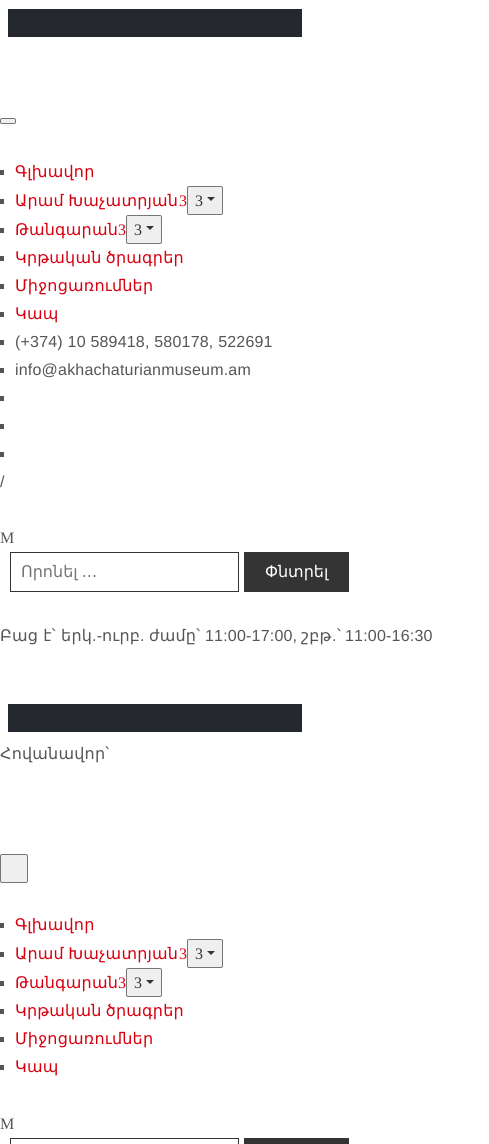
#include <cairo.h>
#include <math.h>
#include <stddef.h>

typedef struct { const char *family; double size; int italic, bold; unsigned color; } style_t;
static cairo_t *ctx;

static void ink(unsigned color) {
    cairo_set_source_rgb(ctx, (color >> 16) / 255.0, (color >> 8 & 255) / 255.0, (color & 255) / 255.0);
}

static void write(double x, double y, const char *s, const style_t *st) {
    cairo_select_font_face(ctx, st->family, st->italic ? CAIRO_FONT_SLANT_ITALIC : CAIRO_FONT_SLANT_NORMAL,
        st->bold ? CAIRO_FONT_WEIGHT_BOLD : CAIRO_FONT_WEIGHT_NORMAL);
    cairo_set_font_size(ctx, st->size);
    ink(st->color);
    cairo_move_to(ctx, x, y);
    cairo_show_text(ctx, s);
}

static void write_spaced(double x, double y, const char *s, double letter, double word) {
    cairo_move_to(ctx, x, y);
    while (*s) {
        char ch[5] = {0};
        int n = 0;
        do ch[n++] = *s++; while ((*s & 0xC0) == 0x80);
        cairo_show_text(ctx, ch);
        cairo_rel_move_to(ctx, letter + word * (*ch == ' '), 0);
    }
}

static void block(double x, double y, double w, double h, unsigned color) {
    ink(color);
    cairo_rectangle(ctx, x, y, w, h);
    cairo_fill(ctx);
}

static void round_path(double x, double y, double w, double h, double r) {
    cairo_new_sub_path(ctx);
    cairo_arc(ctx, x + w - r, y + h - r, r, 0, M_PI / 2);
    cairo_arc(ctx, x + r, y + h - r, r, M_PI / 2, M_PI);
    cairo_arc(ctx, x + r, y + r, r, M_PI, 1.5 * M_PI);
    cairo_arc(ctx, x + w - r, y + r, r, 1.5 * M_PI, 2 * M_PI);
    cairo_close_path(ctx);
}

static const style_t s1 = {"Liberation Serif", 16, 0, 0, 0x343434};
static const style_t s2 = {"DejaVu Sans", 16, 0, 0, 0xffffff};

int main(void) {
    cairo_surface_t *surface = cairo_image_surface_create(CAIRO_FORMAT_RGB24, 489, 1144);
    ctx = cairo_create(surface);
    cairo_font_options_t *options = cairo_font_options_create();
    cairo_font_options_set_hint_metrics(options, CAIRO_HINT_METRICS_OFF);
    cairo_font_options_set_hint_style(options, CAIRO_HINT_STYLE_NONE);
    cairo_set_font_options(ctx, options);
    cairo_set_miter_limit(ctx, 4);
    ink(0xffffff);
    cairo_paint(ctx);
    block(8, 9, 294, 28, 0x25282e);
    ink(0xefefef);
    round_path(0.5, 118.5, 15, 5, 1.5);
    cairo_fill_preserve(ctx);
    ink(0x767676);
    cairo_set_line_width(ctx, 1);
    cairo_stroke(ctx);
    block(0, 170, 4, 5, 0x555555);
    cairo_select_font_face(ctx, "DejaVu Sans", CAIRO_FONT_SLANT_NORMAL, CAIRO_FONT_WEIGHT_NORMAL);
    cairo_set_font_size(ctx, 16);
    ink(0xd7000f);
    write_spaced(15, 177, "Գլխավոր", 0.2, 0);
    block(0, 199, 4, 5, 0x555555);
    ink(0xd7000f);
    write_spaced(15, 206, "Արամ Խաչատրյան", 0.2, -1);
    cairo_select_font_face(ctx, "Liberation Serif", CAIRO_FONT_SLANT_NORMAL, CAIRO_FONT_WEIGHT_NORMAL);
    write_spaced(179, 206, "3", 0.2, 0);
    ink(0xefefef);
    round_path(187.5, 186.5, 35, 28, 1.5);
    cairo_fill_preserve(ctx);
    ink(0x767676);
    cairo_stroke(ctx);
    write(195, 206, "3", &s1);
    cairo_new_path(ctx);
    cairo_move_to(ctx, 207, 197);
    cairo_line_to(ctx, 215, 197);
    cairo_line_to(ctx, 211, 201);
    cairo_close_path(ctx);
    cairo_fill(ctx);
    block(0, 228, 4, 5, 0x555555);
    cairo_select_font_face(ctx, "DejaVu Sans", CAIRO_FONT_SLANT_NORMAL, CAIRO_FONT_WEIGHT_NORMAL);
    ink(0xd7000f);
    write_spaced(15, 235, "Թանգարան", 0.2, 0);
    cairo_select_font_face(ctx, "Liberation Serif", CAIRO_FONT_SLANT_NORMAL, CAIRO_FONT_WEIGHT_NORMAL);
    write_spaced(118, 235, "3", 0.2, 0);
    ink(0xefefef);
    round_path(126.5, 215.5, 35, 28, 1.5);
    cairo_fill_preserve(ctx);
    ink(0x767676);
    cairo_stroke(ctx);
    write(134, 235, "3", &s1);
    cairo_new_path(ctx);
    cairo_move_to(ctx, 146, 226);
    cairo_line_to(ctx, 154, 226);
    cairo_line_to(ctx, 150, 230);
    cairo_close_path(ctx);
    cairo_fill(ctx);
    block(0, 256, 4, 5, 0x555555);
    cairo_select_font_face(ctx, "DejaVu Sans", CAIRO_FONT_SLANT_NORMAL, CAIRO_FONT_WEIGHT_NORMAL);
    ink(0xd7000f);
    write_spaced(15, 263, "Կրթական ծրագրեր", 0.2, -1);
    block(0, 284, 4, 5, 0x555555);
    ink(0xd7000f);
    write_spaced(15, 291, "Միջոցառումներ", 0.2, 0);
    block(0, 312, 4, 5, 0x555555);
    ink(0xd7000f);
    write_spaced(15, 319, "Կապ", 0.2, 0);
    block(0, 340, 4, 5, 0x555555);
    cairo_select_font_face(ctx, "Liberation Sans", CAIRO_FONT_SLANT_NORMAL, CAIRO_FONT_WEIGHT_NORMAL);
    write_spaced(15, 347, "(+374) 10 589418, 580178, 522691", 0.2, 0);
    block(0, 368, 4, 5, 0x555555);
    write_spaced(15, 375, "info@akhachaturianmuseum.am", 0.2, 0);
    block(0, 396, 4, 5, 0x555555);
    block(0, 424, 4, 5, 0x555555);
    block(0, 452, 4, 5, 0x555555);
    write_spaced(0, 487, "/", 0.2, 0);
    cairo_select_font_face(ctx, "Liberation Serif", CAIRO_FONT_SLANT_NORMAL, CAIRO_FONT_WEIGHT_NORMAL);
    write_spaced(0, 543, "M", 0.2, 0);
    cairo_rectangle(ctx, 10.5, 552.5, 228, 39);
    ink(0x343434);
    cairo_stroke(ctx);
    cairo_select_font_face(ctx, "DejaVu Sans", CAIRO_FONT_SLANT_NORMAL, CAIRO_FONT_WEIGHT_NORMAL);
    ink(0x757575);
    write_spaced(21, 577, "Որոնել ...", 0, -1);
    block(244, 552, 105, 40, 0x343434);
    write(265, 577, "Փնտրել", &s2);
    ink(0x555555);
    write_spaced(0, 641, "Բաց է՝ երկ", 0.2, 0);
    cairo_select_font_face(ctx, "Liberation Sans", CAIRO_FONT_SLANT_NORMAL, CAIRO_FONT_WEIGHT_NORMAL);
    write_spaced(92, 641, ".-", 0.2, 0);
    cairo_select_font_face(ctx, "DejaVu Sans", CAIRO_FONT_SLANT_NORMAL, CAIRO_FONT_WEIGHT_NORMAL);
    write_spaced(102, 641, "ուրբ", 0.2, 0);
    cairo_select_font_face(ctx, "Liberation Sans", CAIRO_FONT_SLANT_NORMAL, CAIRO_FONT_WEIGHT_NORMAL);
    write_spaced(140, 641, ".", 0.2, 0);
    cairo_select_font_face(ctx, "DejaVu Sans", CAIRO_FONT_SLANT_NORMAL, CAIRO_FONT_WEIGHT_NORMAL);
    write_spaced(149, 641, "ժամը՝", 0.2, 0);
    cairo_select_font_face(ctx, "Liberation Sans", CAIRO_FONT_SLANT_NORMAL, CAIRO_FONT_WEIGHT_NORMAL);
    write_spaced(205, 641, "11:00-17:00,", 0.2, 0);
    cairo_select_font_face(ctx, "DejaVu Sans", CAIRO_FONT_SLANT_NORMAL, CAIRO_FONT_WEIGHT_NORMAL);
    write_spaced(301, 641, "շբթ", 0.2, 0);
    cairo_select_font_face(ctx, "Liberation Sans", CAIRO_FONT_SLANT_NORMAL, CAIRO_FONT_WEIGHT_NORMAL);
    write_spaced(332, 641, ".", 0.2, 0);
    cairo_select_font_face(ctx, "DejaVu Sans", CAIRO_FONT_SLANT_NORMAL, CAIRO_FONT_WEIGHT_NORMAL);
    write_spaced(337, 641, "՝", 0.2, 0);
    cairo_select_font_face(ctx, "Liberation Sans", CAIRO_FONT_SLANT_NORMAL, CAIRO_FONT_WEIGHT_NORMAL);
    write_spaced(345, 641, "11:00-16:30", 0.2, 0);
    block(8, 704, 294, 28, 0x25282e);
    cairo_select_font_face(ctx, "DejaVu Sans", CAIRO_FONT_SLANT_NORMAL, CAIRO_FONT_WEIGHT_NORMAL);
    ink(0x555555);
    write_spaced(0, 759, "Հովանավոր՝", 0.2, 0);
    ink(0xefefef);
    round_path(0.5, 854.5, 27, 28, 1.5);
    cairo_fill_preserve(ctx);
    ink(0x767676);
    cairo_stroke(ctx);
    block(0, 923, 4, 5, 0x555555);
    ink(0xd7000f);
    write_spaced(15, 930, "Գլխավոր", 0.2, 0);
    block(0, 952, 4, 5, 0x555555);
    ink(0xd7000f);
    write_spaced(15, 959, "Արամ Խաչատրյան", 0.2, -1);
    cairo_select_font_face(ctx, "Liberation Serif", CAIRO_FONT_SLANT_NORMAL, CAIRO_FONT_WEIGHT_NORMAL);
    write_spaced(179, 959, "3", 0.2, 0);
    ink(0xefefef);
    round_path(187.5, 939.5, 35, 28, 1.5);
    cairo_fill_preserve(ctx);
    ink(0x767676);
    cairo_stroke(ctx);
    write(195, 959, "3", &s1);
    cairo_new_path(ctx);
    cairo_move_to(ctx, 207, 951);
    cairo_line_to(ctx, 215, 951);
    cairo_line_to(ctx, 211, 955);
    cairo_close_path(ctx);
    cairo_fill(ctx);
    block(0, 981, 4, 5, 0x555555);
    cairo_select_font_face(ctx, "DejaVu Sans", CAIRO_FONT_SLANT_NORMAL, CAIRO_FONT_WEIGHT_NORMAL);
    ink(0xd7000f);
    write_spaced(15, 988, "Թանգարան", 0.2, 0);
    cairo_select_font_face(ctx, "Liberation Serif", CAIRO_FONT_SLANT_NORMAL, CAIRO_FONT_WEIGHT_NORMAL);
    write_spaced(118, 988, "3", 0.2, 0);
    ink(0xefefef);
    round_path(126.5, 968.5, 35, 28, 1.5);
    cairo_fill_preserve(ctx);
    ink(0x767676);
    cairo_stroke(ctx);
    write(134, 988, "3", &s1);
    cairo_new_path(ctx);
    cairo_move_to(ctx, 146, 980);
    cairo_line_to(ctx, 154, 980);
    cairo_line_to(ctx, 150, 984);
    cairo_close_path(ctx);
    cairo_fill(ctx);
    block(0, 1009, 4, 5, 0x555555);
    cairo_select_font_face(ctx, "DejaVu Sans", CAIRO_FONT_SLANT_NORMAL, CAIRO_FONT_WEIGHT_NORMAL);
    ink(0xd7000f);
    write_spaced(15, 1016, "Կրթական ծրագրեր", 0.2, -1);
    block(0, 1037, 4, 5, 0x555555);
    ink(0xd7000f);
    write_spaced(15, 1044, "Միջոցառումներ", 0.2, 0);
    block(0, 1065, 4, 5, 0x555555);
    ink(0xd7000f);
    write_spaced(15, 1072, "Կապ", 0.2, 0);
    cairo_select_font_face(ctx, "Liberation Serif", CAIRO_FONT_SLANT_NORMAL, CAIRO_FONT_WEIGHT_NORMAL);
    ink(0x555555);
    write_spaced(0, 1129, "M", 0.2, 0);
    cairo_rectangle(ctx, 10.5, 1138.5, 228, 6);
    ink(0x343434);
    cairo_stroke(ctx);
    block(244, 1138, 105, 6, 0x343434);
    cairo_surface_write_to_png(surface, "screenshot.png");
    cairo_font_options_destroy(options);
    cairo_destroy(ctx);
    cairo_surface_destroy(surface);
    return 0;
}
